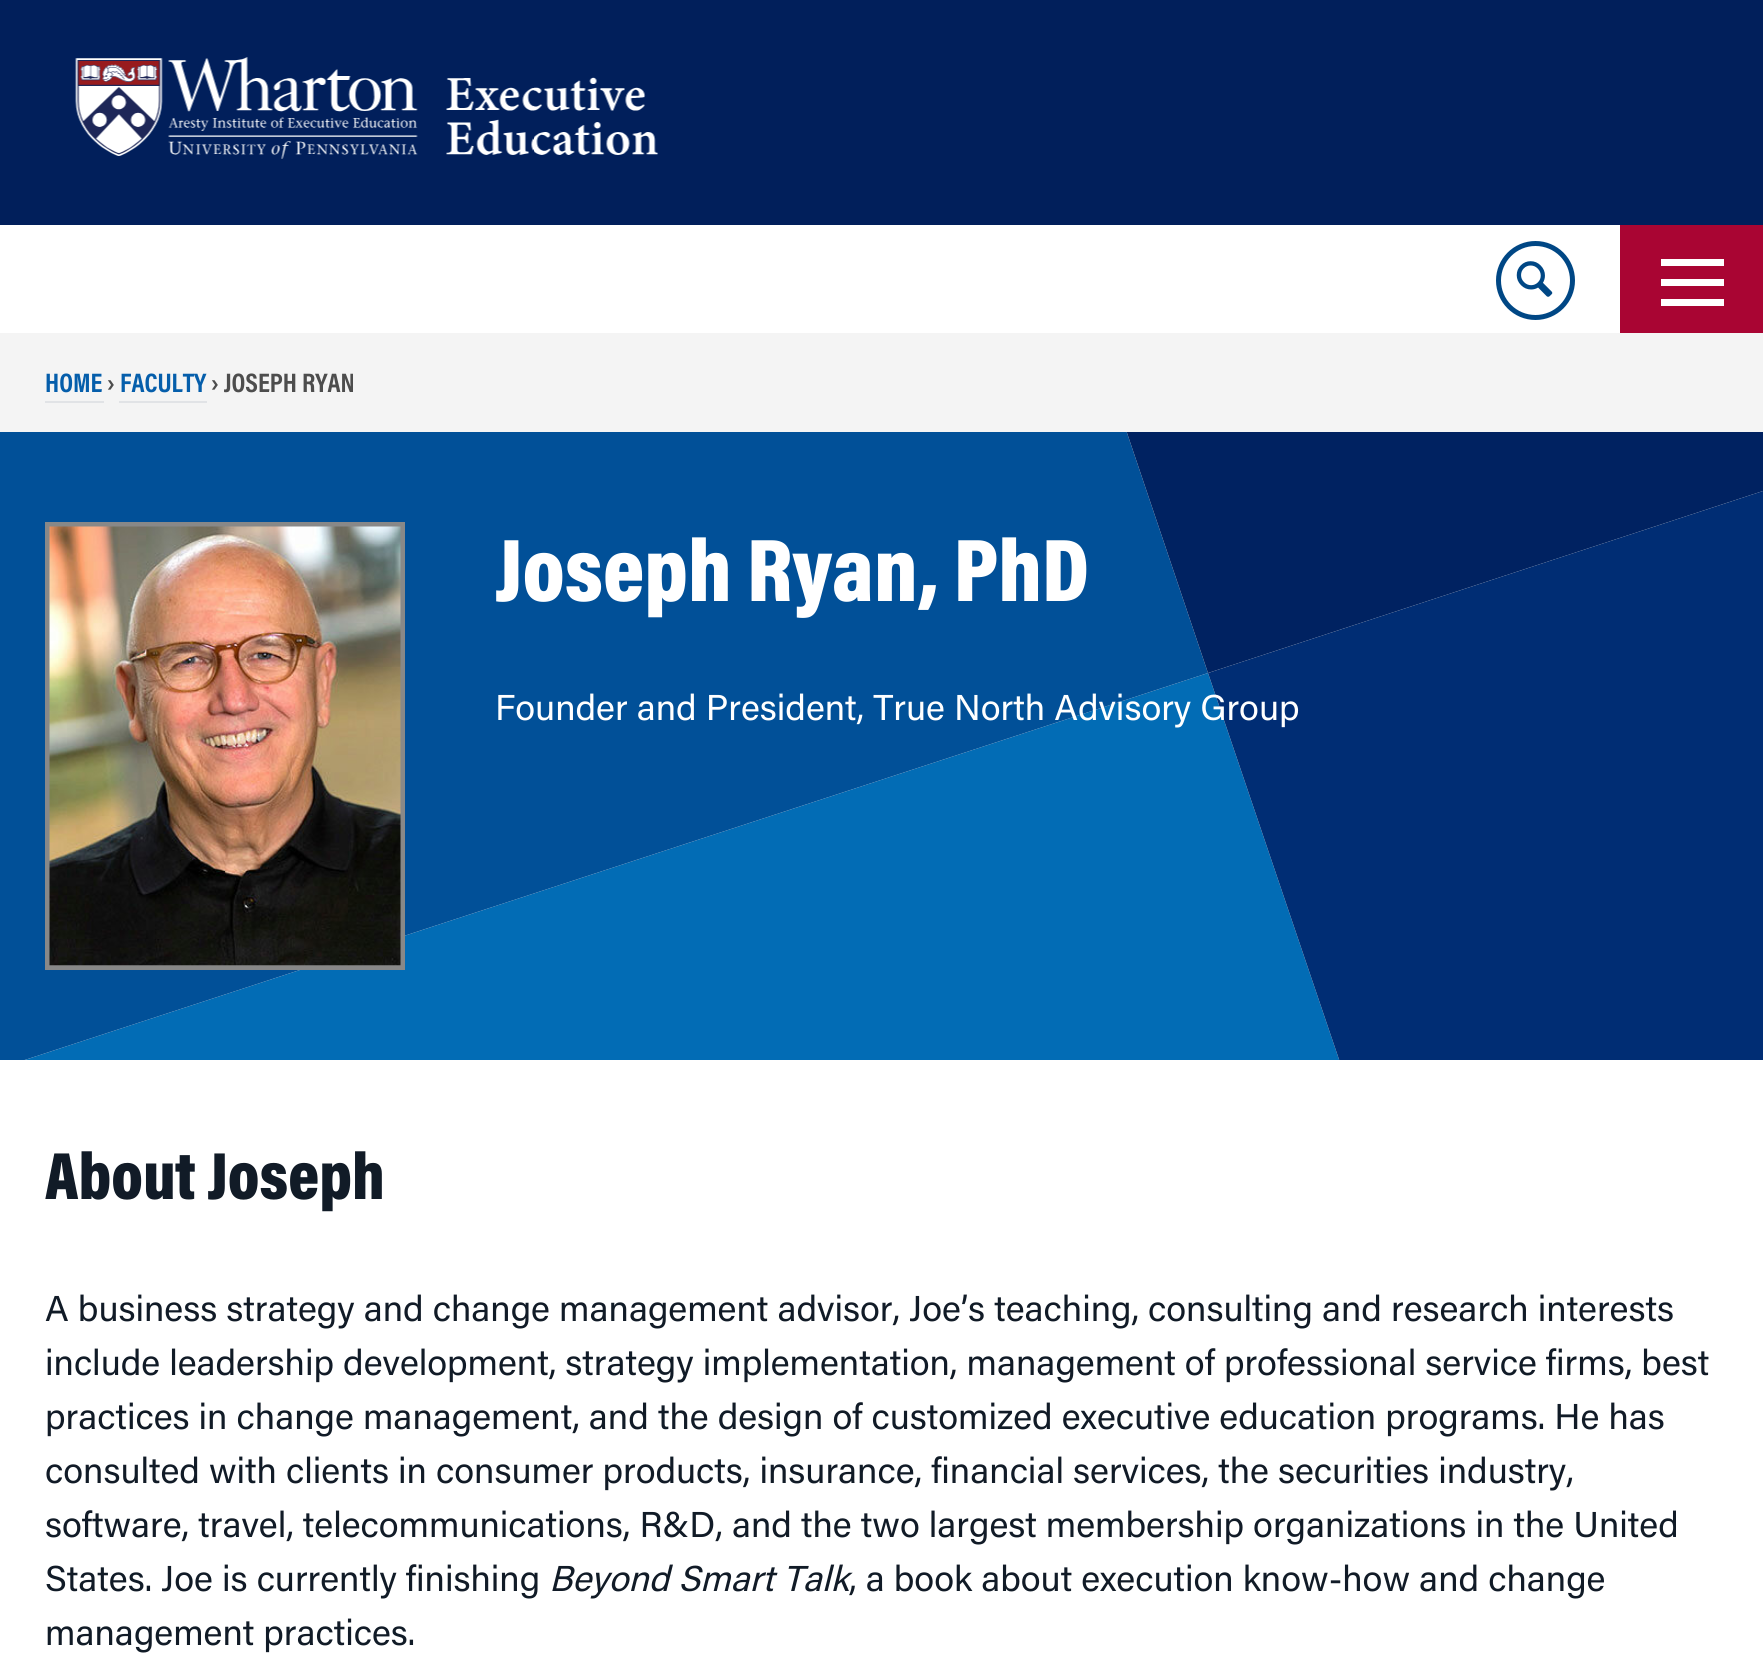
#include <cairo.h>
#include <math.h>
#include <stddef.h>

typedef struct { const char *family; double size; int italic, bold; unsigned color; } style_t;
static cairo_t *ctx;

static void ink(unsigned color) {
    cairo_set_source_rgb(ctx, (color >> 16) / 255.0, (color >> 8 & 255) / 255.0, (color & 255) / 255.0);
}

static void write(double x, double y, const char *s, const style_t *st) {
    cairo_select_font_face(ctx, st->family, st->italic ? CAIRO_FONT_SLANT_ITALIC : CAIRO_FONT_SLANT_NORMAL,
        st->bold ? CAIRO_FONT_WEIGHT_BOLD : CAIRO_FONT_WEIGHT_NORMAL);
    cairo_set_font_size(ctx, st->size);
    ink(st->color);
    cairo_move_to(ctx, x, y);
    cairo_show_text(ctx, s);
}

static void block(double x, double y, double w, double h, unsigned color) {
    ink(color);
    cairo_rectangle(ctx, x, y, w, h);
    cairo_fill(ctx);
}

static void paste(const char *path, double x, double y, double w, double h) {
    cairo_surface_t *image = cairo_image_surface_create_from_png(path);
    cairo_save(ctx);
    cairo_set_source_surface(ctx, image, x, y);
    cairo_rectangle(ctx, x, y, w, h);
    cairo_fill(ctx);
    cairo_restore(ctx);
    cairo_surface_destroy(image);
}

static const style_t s1 = {"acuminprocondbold", 27, 0, 1, 0x055eab};
static const style_t s2 = {"acuminprocondbold", 27, 0, 1, 0x4d4d4d};
static const style_t s3 = {"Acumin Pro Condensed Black", 90, 0, 0, 0xffffff};
static const style_t s4 = {"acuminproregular", 36, 0, 0, 0xffffff};
static const style_t s5 = {"Acumin Pro Condensed Black", 67.5, 0, 0, 0x111b27};
static const style_t s6 = {"acuminproregular", 36, 0, 0, 0x111b27};
static const style_t s7 = {"acuminproregular", 36, 1, 0, 0x111b27};

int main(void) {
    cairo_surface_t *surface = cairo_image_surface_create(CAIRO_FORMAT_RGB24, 1763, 1669);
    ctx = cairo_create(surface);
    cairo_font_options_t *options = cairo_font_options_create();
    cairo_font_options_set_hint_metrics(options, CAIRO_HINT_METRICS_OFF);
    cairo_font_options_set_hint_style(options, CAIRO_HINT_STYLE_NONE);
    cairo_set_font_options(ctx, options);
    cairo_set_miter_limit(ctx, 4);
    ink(0xf4f4f4);
    cairo_paint(ctx);
    block(0, 225, 1620, 108, 0xffffff);
    block(0, 0, 1763, 225, 0x011f5b);
    paste("pic1.png", 75, 57, 584, 102);
    cairo_arc(ctx, 1535.5, 280.5, 37, 0, 2 * M_PI);
    ink(0x004785);
    cairo_set_line_width(ctx, 5);
    cairo_stroke(ctx);
    paste("pic2.png", 1516, 261, 37, 36);
    block(1620, 225, 143, 108, 0xa90533);
    block(1661, 279, 63, 7, 0xffffff);
    block(1661, 259, 63, 7, 0xffffff);
    block(1661, 299, 63, 7, 0xffffff);
    write(45, 392, "HOME", &s1);
    block(45, 401, 59, 2, 0xe1e3e6);
    write(107, 392, "›", &s2);
    block(119, 401, 88, 2, 0xe1e3e6);
    write(120, 392, "FACULTY", &s1);
    write(211, 392, "› JOSEPH RYAN", &s2);
    ink(0x026cb5);
    cairo_new_path(ctx);
    cairo_move_to(ctx, -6, 1070);
    cairo_line_to(ctx, -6, 1319);
    cairo_line_to(ctx, 1427, 1319);
    cairo_line_to(ctx, 1208, 673);
    cairo_close_path(ctx);
    cairo_fill(ctx);
    ink(0x002d74);
    cairo_new_path(ctx);
    cairo_move_to(ctx, 1208, 673);
    cairo_line_to(ctx, 1427, 1319);
    cairo_line_to(ctx, 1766, 1319);
    cairo_line_to(ctx, 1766, 490);
    cairo_close_path(ctx);
    cairo_fill(ctx);
    cairo_save(ctx);
    cairo_rectangle(ctx, 0, 432, 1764, 628);
    cairo_clip(ctx);
    ink(0x015098);
    cairo_new_path(ctx);
    cairo_move_to(ctx, -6, 1070);
    cairo_line_to(ctx, 1208, 673);
    cairo_line_to(ctx, 1038, 169);
    cairo_line_to(ctx, 3, 169);
    cairo_line_to(ctx, -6, 172);
    cairo_close_path(ctx);
    cairo_fill(ctx);
    ink(0x002261);
    cairo_new_path(ctx);
    cairo_move_to(ctx, 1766, 490);
    cairo_line_to(ctx, 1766, 169);
    cairo_line_to(ctx, 1038, 169);
    cairo_line_to(ctx, 1208, 673);
    cairo_close_path(ctx);
    cairo_fill(ctx);
    cairo_restore(ctx);
    cairo_rectangle(ctx, 47.5, 524.5, 355, 443);
    ink(0x888888);
    cairo_stroke(ctx);
    paste("pic3.png", 49, 526, 352, 440);
    write(495, 601, "Joseph Ryan, PhD", &s3);
    write(495, 720, "Founder and President, True North Advisory Group", &s4);
    block(0, 1060, 1763, 609, 0xffffff);
    write(45, 1199, "About Joseph", &s5);
    write(45, 1321, "A business strategy and change management advisor, Joe’s teaching, consulting and research interests", &s6);
    write(45, 1375, "include leadership development, strategy implementation, management of professional service firms, best", &s6);
    write(45, 1429, "practices in change management, and the design of customized executive education programs. He has", &s6);
    write(45, 1483, "consulted with clients in consumer products, insurance, financial services, the securities industry,", &s6);
    write(45, 1537, "software, travel, telecommunications, R&D, and the two largest membership organizations in the United", &s6);
    write(45, 1591, "States. Joe is currently finishing", &s6);
    write(549, 1591, "Beyond Smart Talk", &s7);
    write(849, 1591, ", a book about execution know-how and change", &s6);
    write(45, 1645, "management practices.", &s6);
    cairo_surface_write_to_png(surface, "screenshot.png");
    cairo_font_options_destroy(options);
    cairo_destroy(ctx);
    cairo_surface_destroy(surface);
    return 0;
}
